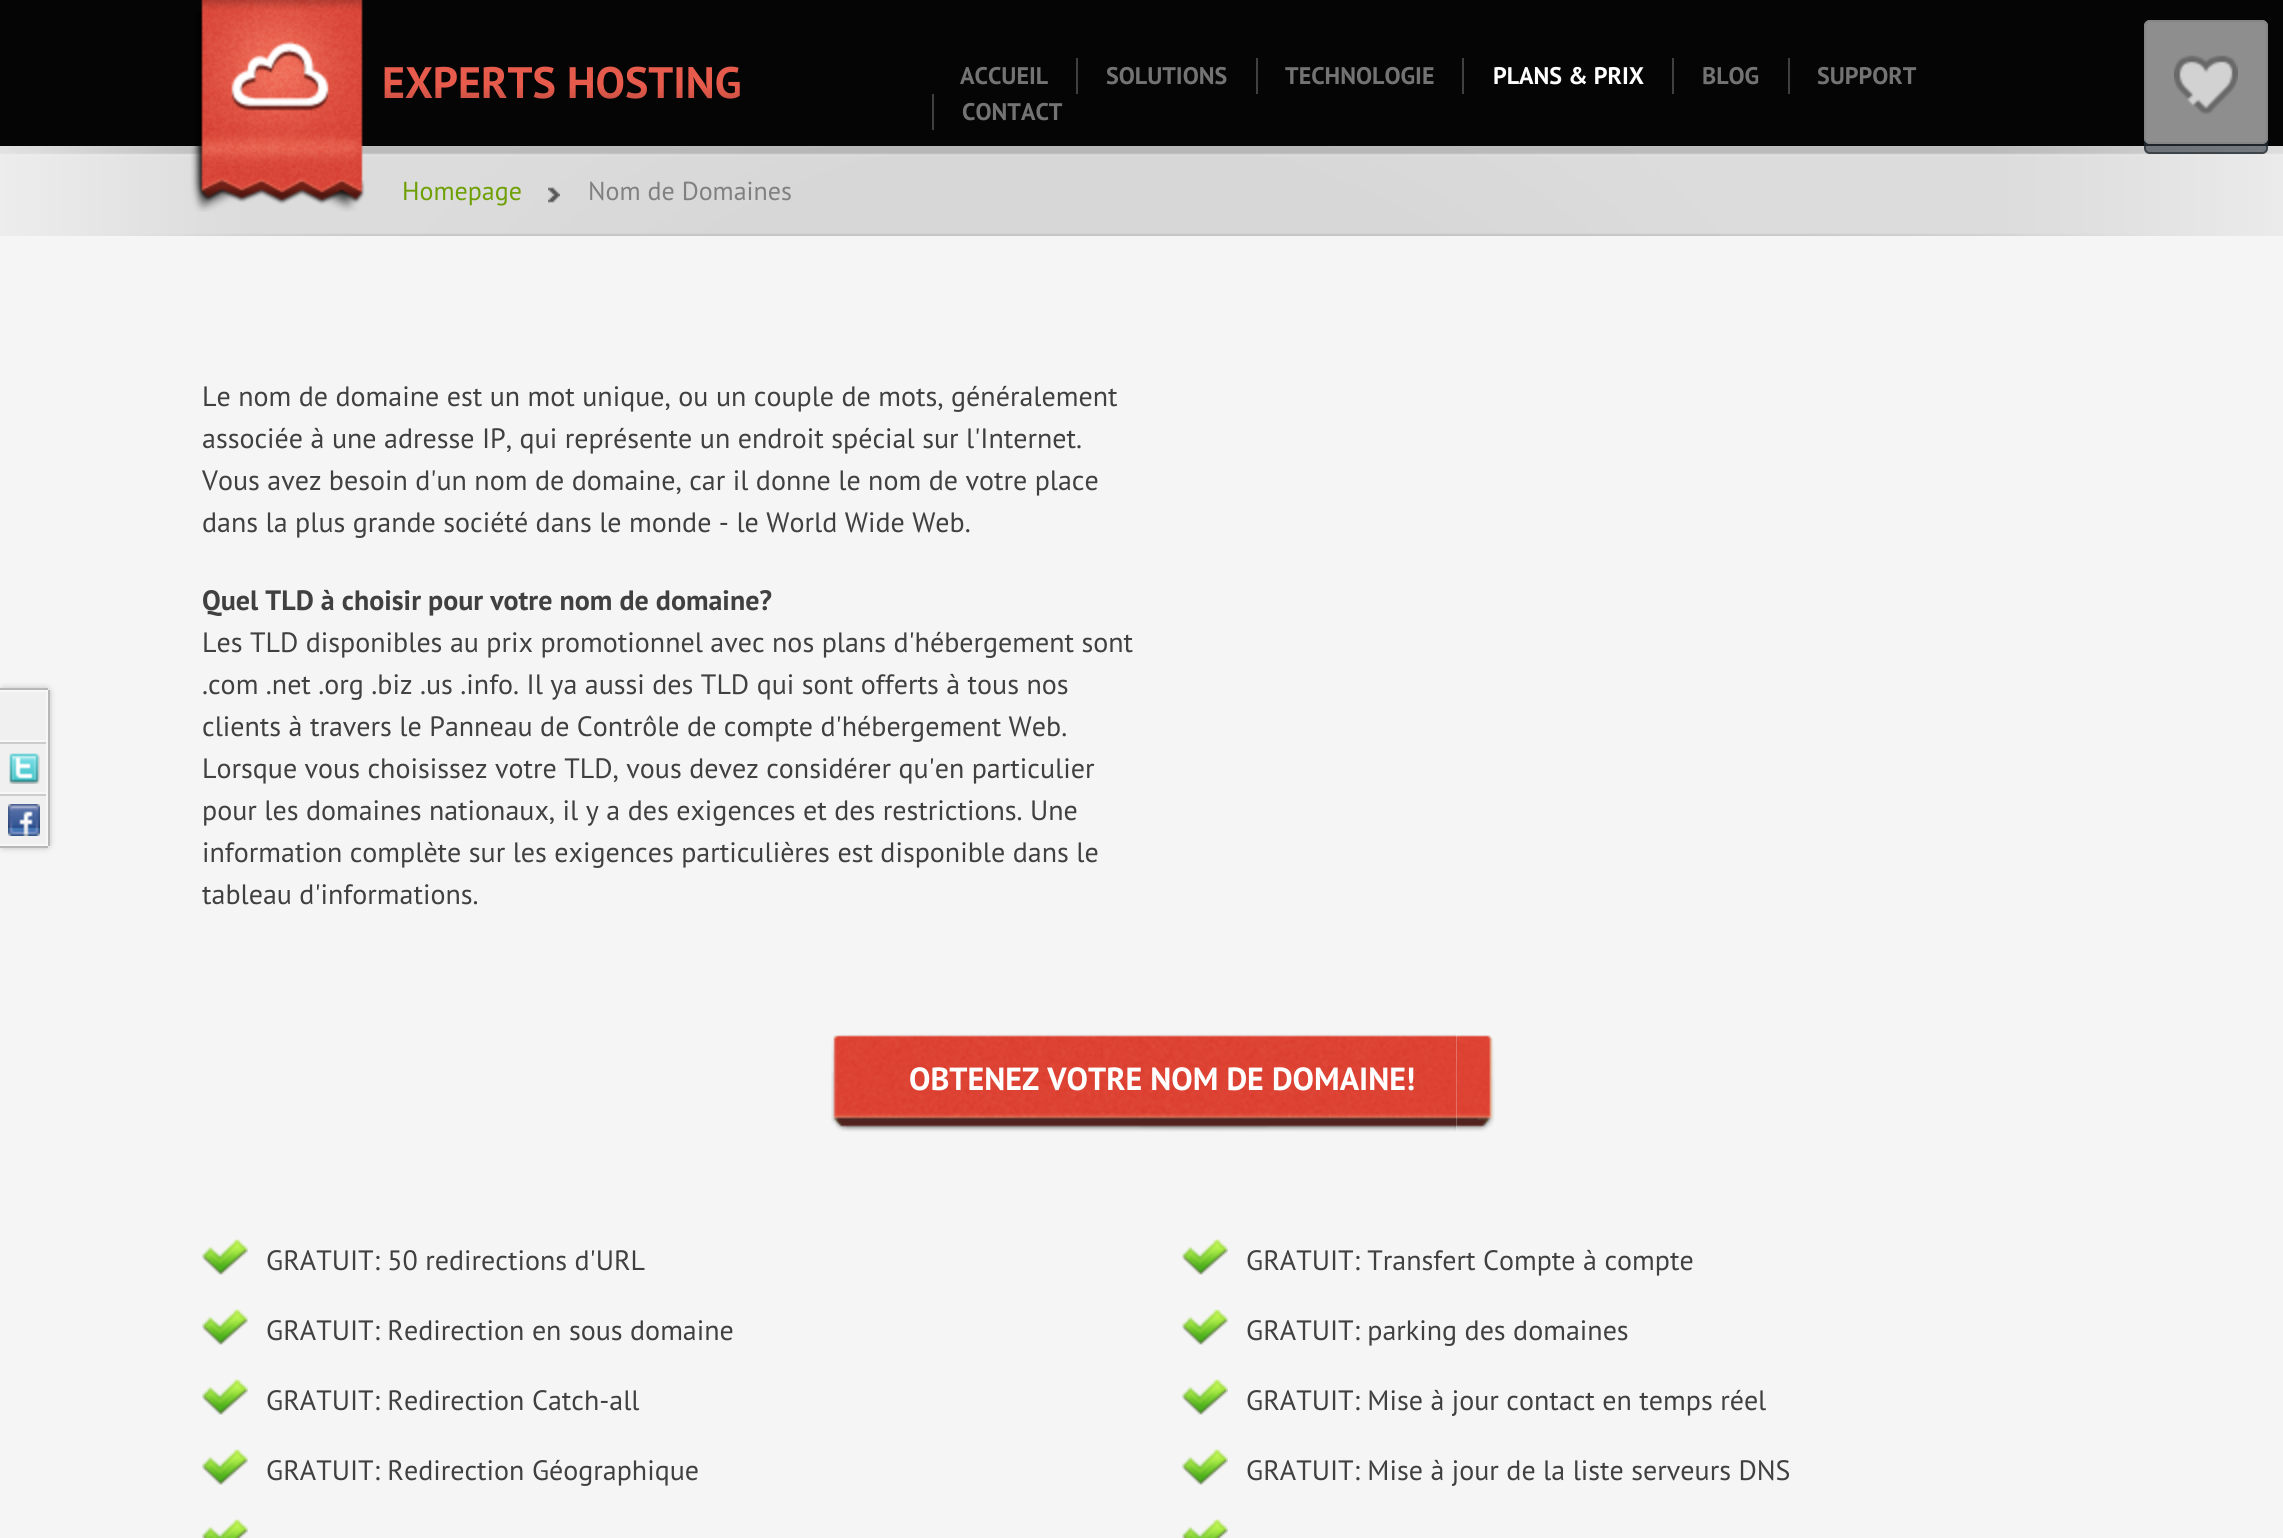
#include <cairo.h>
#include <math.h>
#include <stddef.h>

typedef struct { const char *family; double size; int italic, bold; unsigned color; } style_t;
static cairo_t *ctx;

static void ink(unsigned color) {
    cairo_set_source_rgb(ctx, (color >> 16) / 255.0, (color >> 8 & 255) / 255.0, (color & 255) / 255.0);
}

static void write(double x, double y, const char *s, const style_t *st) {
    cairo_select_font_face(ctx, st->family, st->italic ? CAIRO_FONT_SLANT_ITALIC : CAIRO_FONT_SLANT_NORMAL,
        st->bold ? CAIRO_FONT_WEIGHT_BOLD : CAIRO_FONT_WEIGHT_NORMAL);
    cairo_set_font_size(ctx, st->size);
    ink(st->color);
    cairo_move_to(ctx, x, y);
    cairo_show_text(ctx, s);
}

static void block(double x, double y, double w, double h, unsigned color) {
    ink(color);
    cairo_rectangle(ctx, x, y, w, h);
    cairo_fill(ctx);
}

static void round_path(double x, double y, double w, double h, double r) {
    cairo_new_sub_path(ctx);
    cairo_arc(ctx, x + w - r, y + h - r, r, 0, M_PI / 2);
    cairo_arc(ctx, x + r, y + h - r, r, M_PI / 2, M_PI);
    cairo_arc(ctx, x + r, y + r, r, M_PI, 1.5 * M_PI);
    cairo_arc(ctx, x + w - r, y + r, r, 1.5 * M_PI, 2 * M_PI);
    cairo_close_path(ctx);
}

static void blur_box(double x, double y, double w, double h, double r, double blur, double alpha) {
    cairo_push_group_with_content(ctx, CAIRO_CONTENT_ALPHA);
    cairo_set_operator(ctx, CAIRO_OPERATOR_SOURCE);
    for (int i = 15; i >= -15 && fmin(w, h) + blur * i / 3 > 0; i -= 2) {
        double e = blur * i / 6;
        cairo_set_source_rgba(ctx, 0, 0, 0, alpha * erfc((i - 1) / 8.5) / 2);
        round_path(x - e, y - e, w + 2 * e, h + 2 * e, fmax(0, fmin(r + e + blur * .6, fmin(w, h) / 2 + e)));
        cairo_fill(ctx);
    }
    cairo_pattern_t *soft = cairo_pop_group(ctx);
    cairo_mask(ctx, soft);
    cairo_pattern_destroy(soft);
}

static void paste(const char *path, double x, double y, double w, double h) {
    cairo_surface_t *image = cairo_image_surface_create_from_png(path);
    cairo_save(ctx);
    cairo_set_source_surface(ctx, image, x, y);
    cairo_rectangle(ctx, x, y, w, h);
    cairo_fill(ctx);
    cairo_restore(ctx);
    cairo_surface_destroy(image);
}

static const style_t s1 = {"PT Sans", 44, 0, 1, 0xe65b4c};
static const style_t s2 = {"PT Sans", 24, 0, 1, 0x737373};
static const style_t s3 = {"PT Sans", 24, 0, 1, 0xffffff};
static const style_t s4 = {"PT Sans", 26, 0, 0, 0x6ea004};
static const style_t s5 = {"PT Sans", 26, 0, 0, 0x808080};
static const style_t s6 = {"PT Sans", 28, 0, 0, 0x404040};
static const style_t s7 = {"PT Sans", 28, 0, 1, 0x404040};
static const style_t s8 = {"PT Sans", 32, 0, 1, 0xffffff};

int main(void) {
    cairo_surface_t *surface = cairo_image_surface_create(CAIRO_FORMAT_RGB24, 2283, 1538);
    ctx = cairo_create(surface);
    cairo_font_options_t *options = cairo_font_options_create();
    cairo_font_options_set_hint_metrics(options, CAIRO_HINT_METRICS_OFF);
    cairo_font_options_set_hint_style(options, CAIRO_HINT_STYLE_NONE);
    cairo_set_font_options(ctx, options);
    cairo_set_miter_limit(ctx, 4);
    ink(0xf5f5f5);
    cairo_paint(ctx);
    cairo_save(ctx);
    cairo_set_fill_rule(ctx, CAIRO_FILL_RULE_EVEN_ODD);
    cairo_new_path(ctx);
    cairo_move_to(ctx, 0, 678);
    cairo_line_to(ctx, 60, 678);
    cairo_line_to(ctx, 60, 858);
    cairo_line_to(ctx, 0, 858);
    cairo_close_path(ctx);
    cairo_move_to(ctx, 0, 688);
    cairo_line_to(ctx, 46, 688);
    cairo_curve_to(ctx, 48, 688, 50, 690, 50, 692);
    cairo_line_to(ctx, 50, 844);
    cairo_curve_to(ctx, 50, 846, 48, 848, 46, 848);
    cairo_line_to(ctx, 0, 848);
    cairo_close_path(ctx);
    cairo_clip(ctx);
    ink(0x181818);
    blur_box(0, 688, 50, 160, 4, 3, 0.25);
    cairo_restore(ctx);
    cairo_set_source_rgba(ctx, 0.941, 0.941, 0.941, 0.95);
    cairo_new_path(ctx);
    cairo_move_to(ctx, 0, 688);
    cairo_line_to(ctx, 46, 688);
    cairo_curve_to(ctx, 48, 688, 50, 690, 50, 692);
    cairo_line_to(ctx, 50, 844);
    cairo_curve_to(ctx, 50, 846, 48, 848, 46, 848);
    cairo_line_to(ctx, 0, 848);
    cairo_close_path(ctx);
    cairo_fill(ctx);
    block(0, 688, 48, 2, 0xb7b7b7);
    block(48, 690, 2, 156, 0xb7b7b7);
    block(0, 846, 48, 2, 0xb7b7b7);
    block(0, 690, 48, 2, 0xf7f7f7);
    block(46, 690, 2, 52, 0xf7f7f7);
    block(0, 740, 48, 2, 0xf7f7f7);
    block(0, 742, 48, 2, 0xcccccc);
    block(46, 742, 2, 52, 0xf7f7f7);
    block(0, 792, 48, 2, 0xf7f7f7);
    paste("pic1.png", 9, 753, 31, 31);
    block(0, 794, 48, 2, 0xcccccc);
    block(46, 794, 2, 52, 0xf7f7f7);
    block(0, 844, 48, 2, 0xf7f7f7);
    paste("pic2.png", 8, 804, 32, 32);
    block(0, 0, 2283, 146, 0x050505);
    paste("pic5.png", 0, 146, 2283, 90);
    paste("pic3.png", 190, 0, 175, 212);
    write(382, 98, "EXPERTS HOSTING", &s1);
    paste("pic4.png", 384, 88, 356, 11);
    write(960, 84, "ACCUEIL", &s2);
    block(1076, 58, 2, 36, 0x404040);
    write(1106, 84, "SOLUTIONS", &s2);
    block(1256, 58, 2, 36, 0x404040);
    write(1285, 84, "TECHNOLOGIE", &s2);
    block(1462, 58, 2, 36, 0x404040);
    write(1493, 84, "PLANS & PRIX", &s3);
    block(1672, 58, 2, 36, 0x404040);
    write(1702, 84, "BLOG", &s2);
    block(1788, 58, 2, 36, 0x404040);
    write(1817, 84, "SUPPORT", &s2);
    block(932, 94, 2, 36, 0x404040);
    write(962, 120, "CONTACT", &s2);
    write(402, 200, "Homepage", &s4);
    paste("pic6.png", 548, 187, 12, 16);
    write(588, 200, "Nom de Domaines", &s5);
    write(202, 406, "Le nom de domaine est un mot unique, ou un couple de mots, généralement", &s6);
    write(202, 448, "associée à une adresse IP, qui représente un endroit spécial sur l'Internet.", &s6);
    write(202, 490, "Vous avez besoin d'un nom de domaine, car il donne le nom de votre place", &s6);
    write(202, 532, "dans la plus grande société dans le monde - le World Wide Web.", &s6);
    write(202, 610, "Quel TLD à choisir pour votre nom de domaine?", &s7);
    write(202, 652, "Les TLD disponibles au prix promotionnel avec nos plans d'hébergement sont", &s6);
    write(202, 694, ".com .net .org .biz .us .info. Il ya aussi des TLD qui sont offerts à tous nos", &s6);
    write(202, 736, "clients à travers le Panneau de Contrôle de compte d'hébergement Web.", &s6);
    write(202, 778, "Lorsque vous choisissez votre TLD, vous devez considérer qu'en particulier", &s6);
    write(202, 820, "pour les domaines nationaux, il y a des exigences et des restrictions. Une", &s6);
    write(202, 862, "information complète sur les exigences particulières est disponible dans le", &s6);
    write(202, 904, "tableau d'informations.", &s6);
    paste("pic7.png", 1455, 1035, 40, 97);
    paste("pic8.png", 831, 1034, 625, 98);
    write(909, 1090, "OBTENEZ VOTRE NOM DE DOMAINE!", &s8);
    paste("pic9.png", 202, 1239, 46, 36);
    write(266, 1270, "GRATUIT: 50 redirections d'URL", &s6);
    paste("pic9.png", 202, 1309, 46, 36);
    write(266, 1340, "GRATUIT: Redirection en sous domaine", &s6);
    paste("pic9.png", 202, 1379, 46, 36);
    write(266, 1410, "GRATUIT: Redirection Catch-all", &s6);
    paste("pic9.png", 202, 1449, 46, 36);
    write(266, 1480, "GRATUIT: Redirection Géographique", &s6);
    paste("pic10.png", 202, 1519, 46, 19);
    paste("pic9.png", 1182, 1239, 46, 36);
    write(1246, 1270, "GRATUIT: Transfert Compte à compte", &s6);
    paste("pic9.png", 1182, 1309, 46, 36);
    write(1246, 1340, "GRATUIT: parking des domaines", &s6);
    paste("pic9.png", 1182, 1379, 46, 36);
    write(1246, 1410, "GRATUIT: Mise à jour contact en temps réel", &s6);
    paste("pic9.png", 1182, 1449, 46, 36);
    write(1246, 1480, "GRATUIT: Mise à jour de la liste serveurs DNS", &s6);
    paste("pic10.png", 1182, 1519, 46, 19);
    cairo_set_source_rgba(ctx, 0.188, 0.224, 0.259, 0.6);
    cairo_new_path(ctx);
    cairo_move_to(ctx, 2144, 100);
    cairo_line_to(ctx, 2268, 100);
    cairo_line_to(ctx, 2268, 148);
    cairo_curve_to(ctx, 2268, 151.5, 2265.5, 154, 2262, 154);
    cairo_line_to(ctx, 2150, 154);
    cairo_curve_to(ctx, 2146.5, 154, 2144, 151.5, 2144, 148);
    cairo_close_path(ctx);
    cairo_fill(ctx);
    cairo_new_path(ctx);
    cairo_move_to(ctx, 2145, 101);
    cairo_line_to(ctx, 2267, 101);
    cairo_line_to(ctx, 2267, 148);
    cairo_curve_to(ctx, 2267, 151, 2265, 153, 2262, 153);
    cairo_line_to(ctx, 2150, 153);
    cairo_curve_to(ctx, 2147, 153, 2145, 151, 2145, 148);
    cairo_close_path(ctx);
    cairo_set_source_rgba(ctx, 0.11, 0.145, 0.173, 0.6);
    cairo_stroke(ctx);
    ink(0x8e8e8e);
    round_path(2144, 20, 124, 124, 6);
    cairo_fill(ctx);
    paste("pic11.png", 2174, 55, 64, 59);
    round_path(2145, 21, 122, 122, 5);
    ink(0x858585);
    cairo_stroke(ctx);
    cairo_surface_write_to_png(surface, "screenshot.png");
    cairo_font_options_destroy(options);
    cairo_destroy(ctx);
    cairo_surface_destroy(surface);
    return 0;
}
